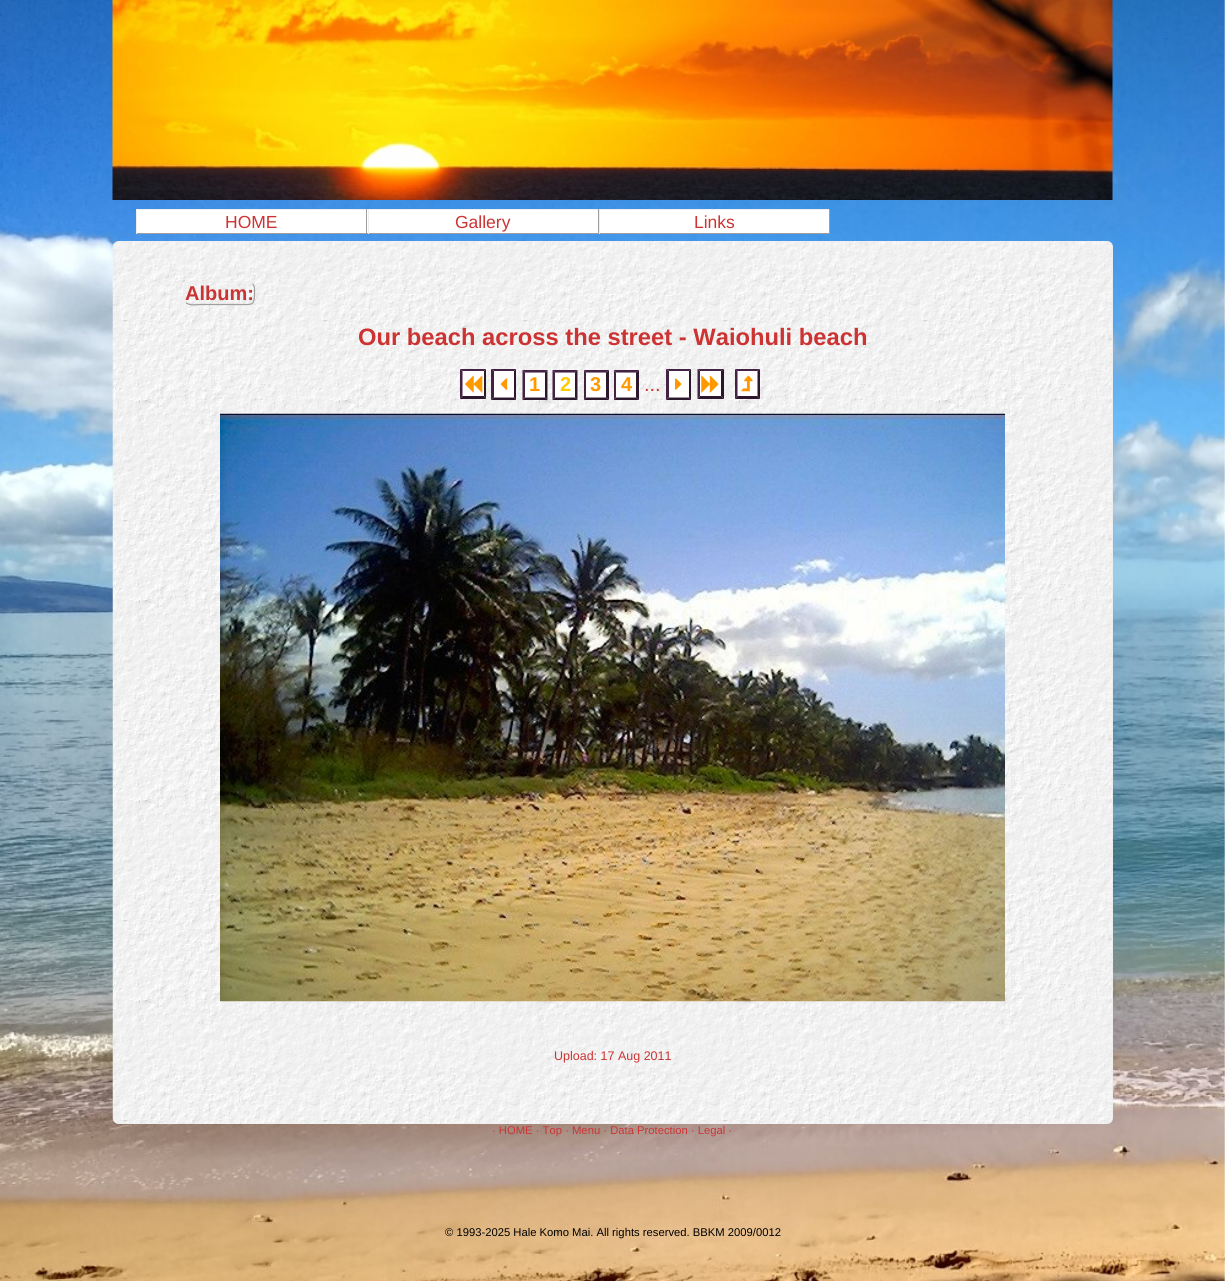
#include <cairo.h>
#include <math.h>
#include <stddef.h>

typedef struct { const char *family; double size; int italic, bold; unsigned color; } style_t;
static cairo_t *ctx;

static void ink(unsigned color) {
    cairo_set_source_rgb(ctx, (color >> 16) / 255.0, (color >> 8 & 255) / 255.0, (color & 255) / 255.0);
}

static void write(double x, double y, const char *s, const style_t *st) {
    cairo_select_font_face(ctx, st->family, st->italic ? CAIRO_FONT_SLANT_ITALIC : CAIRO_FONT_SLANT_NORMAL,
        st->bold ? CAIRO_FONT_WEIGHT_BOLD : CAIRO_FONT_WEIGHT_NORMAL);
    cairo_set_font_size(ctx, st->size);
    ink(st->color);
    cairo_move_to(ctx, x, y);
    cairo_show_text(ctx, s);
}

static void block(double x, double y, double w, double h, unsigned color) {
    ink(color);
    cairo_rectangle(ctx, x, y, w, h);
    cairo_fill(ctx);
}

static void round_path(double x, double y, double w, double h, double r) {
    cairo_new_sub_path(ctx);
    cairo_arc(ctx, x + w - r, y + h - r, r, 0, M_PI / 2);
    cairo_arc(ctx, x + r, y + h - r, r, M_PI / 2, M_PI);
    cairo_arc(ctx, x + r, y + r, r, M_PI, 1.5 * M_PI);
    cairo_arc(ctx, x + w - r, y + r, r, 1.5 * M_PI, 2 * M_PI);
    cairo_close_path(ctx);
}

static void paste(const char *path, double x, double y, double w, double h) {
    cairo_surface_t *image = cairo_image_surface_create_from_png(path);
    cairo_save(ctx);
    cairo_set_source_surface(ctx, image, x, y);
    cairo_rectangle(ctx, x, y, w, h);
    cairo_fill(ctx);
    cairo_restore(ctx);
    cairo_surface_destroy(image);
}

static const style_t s1 = {"Liberation Sans", 17.5, 0, 0, 0xcc3333};
static const style_t s2 = {"Liberation Sans", 20, 0, 1, 0xcc3333};
static const style_t s3 = {"Liberation Sans", 23.75, 0, 1, 0xcc3333};
static const style_t s4 = {"Liberation Sans", 20, 0, 1, 0xff9900};
static const style_t s5 = {"Liberation Sans", 20, 0, 1, 0xffcc00};
static const style_t s6 = {"Liberation Sans", 20, 0, 0, 0xcc3333};
static const style_t s7 = {"Liberation Sans", 12.5, 0, 0, 0xcc3333};
static const style_t s8 = {"Liberation Sans", 11.25, 0, 0, 0xcc3333};
static const style_t s9 = {"Liberation Sans", 11.25, 0, 0, 0x000000};

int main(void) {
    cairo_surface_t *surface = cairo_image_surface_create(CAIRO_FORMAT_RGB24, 1225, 1281);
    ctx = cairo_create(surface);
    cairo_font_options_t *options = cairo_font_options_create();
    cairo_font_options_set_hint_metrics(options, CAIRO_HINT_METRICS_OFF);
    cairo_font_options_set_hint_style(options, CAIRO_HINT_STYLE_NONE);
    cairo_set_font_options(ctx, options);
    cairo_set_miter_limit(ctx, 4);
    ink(0xffffff);
    cairo_paint(ctx);
    paste("pic1.png", 0, 0, 1225, 1281);
    paste("pic2.png", 112, 0, 1001, 200);
    block(137, 210, 231, 23, 0xffffff);
    block(136, 209, 694, 1, 0xeeeeee);
    block(366, 209, 1, 25, 0x9f9f9f);
    block(136, 233, 232, 1, 0x9f9f9f);
    block(136, 209, 1, 25, 0xeeeeee);
    write(225, 228, "HOME", &s1);
    block(369, 210, 229, 23, 0xffffff);
    block(598, 209, 1, 25, 0x9f9f9f);
    block(368, 233, 231, 1, 0x9f9f9f);
    block(368, 209, 1, 25, 0xeeeeee);
    write(455, 228, "Gallery", &s1);
    block(600, 210, 229, 23, 0xffffff);
    block(829, 209, 1, 25, 0x9f9f9f);
    block(599, 233, 231, 1, 0x9f9f9f);
    block(599, 209, 1, 25, 0xeeeeee);
    write(694, 228, "Links", &s1);
    ink(0xeeeeee);
    round_path(113, 241, 1000, 883, 6);
    cairo_fill(ctx);
    paste("pic3.png", 112, 241, 1000, 883);
    cairo_new_path(ctx);
    cairo_move_to(ctx, 252.5, 283.5);
    cairo_curve_to(ctx, 255, 286, 254.5, 290, 254.5, 293);
    cairo_curve_to(ctx, 254.5, 306, 252.5, 304.5, 239, 304.5);
    cairo_line_to(ctx, 200, 304.5);
    cairo_curve_to(ctx, 197, 304.5, 189, 306, 186, 302.5);
    ink(0x9f9f9f);
    cairo_set_line_width(ctx, 1.2);
    cairo_stroke(ctx);
    cairo_new_path(ctx);
    cairo_move_to(ctx, 186, 302.5);
    cairo_curve_to(ctx, 183.5, 300.5, 184.5, 296, 184.5, 293);
    cairo_curve_to(ctx, 184.5, 280, 186.5, 282, 200, 282);
    cairo_line_to(ctx, 239, 282);
    cairo_curve_to(ctx, 241.5, 282, 249.5, 280.5, 252.5, 283.5);
    ink(0xeeeeee);
    cairo_stroke(ctx);
    write(185, 300, "Album:", &s2);
    write(358, 345, "Our beach across the street - Waiohuli beach", &s3);
    block(460, 369, 26, 30, 0xffffff);
    ink(0x442244);
    cairo_new_path(ctx);
    cairo_move_to(ctx, 460, 369);
    cairo_line_to(ctx, 486, 369);
    cairo_line_to(ctx, 484, 371);
    cairo_line_to(ctx, 462.5, 371);
    cairo_close_path(ctx);
    cairo_fill(ctx);
    ink(0x2d172d);
    cairo_new_path(ctx);
    cairo_move_to(ctx, 486, 369);
    cairo_line_to(ctx, 486, 399);
    cairo_line_to(ctx, 484, 396);
    cairo_line_to(ctx, 484, 371);
    cairo_close_path(ctx);
    cairo_fill(ctx);
    cairo_new_path(ctx);
    cairo_move_to(ctx, 486, 399);
    cairo_line_to(ctx, 460, 399);
    cairo_line_to(ctx, 462.5, 396);
    cairo_line_to(ctx, 484, 396);
    cairo_close_path(ctx);
    cairo_fill(ctx);
    ink(0x442244);
    cairo_new_path(ctx);
    cairo_move_to(ctx, 460, 399);
    cairo_line_to(ctx, 460, 369);
    cairo_line_to(ctx, 462.5, 371);
    cairo_line_to(ctx, 462.5, 396);
    cairo_close_path(ctx);
    cairo_fill(ctx);
    paste("pic4.png", 465, 375, 18, 18);
    block(491, 369, 25, 31, 0xffffff);
    ink(0x442244);
    cairo_new_path(ctx);
    cairo_move_to(ctx, 491, 369);
    cairo_line_to(ctx, 516, 369);
    cairo_line_to(ctx, 514, 371);
    cairo_line_to(ctx, 494, 371);
    cairo_close_path(ctx);
    cairo_fill(ctx);
    ink(0x2d172d);
    cairo_new_path(ctx);
    cairo_move_to(ctx, 516, 369);
    cairo_line_to(ctx, 516, 400);
    cairo_line_to(ctx, 514, 397.5);
    cairo_line_to(ctx, 514, 371);
    cairo_close_path(ctx);
    cairo_fill(ctx);
    cairo_new_path(ctx);
    cairo_move_to(ctx, 516, 400);
    cairo_line_to(ctx, 491, 400);
    cairo_line_to(ctx, 494, 397.5);
    cairo_line_to(ctx, 514, 397.5);
    cairo_close_path(ctx);
    cairo_fill(ctx);
    ink(0x442244);
    cairo_new_path(ctx);
    cairo_move_to(ctx, 491, 400);
    cairo_line_to(ctx, 491, 369);
    cairo_line_to(ctx, 494, 371);
    cairo_line_to(ctx, 494, 397.5);
    cairo_close_path(ctx);
    cairo_fill(ctx);
    paste("pic5.png", 500, 378, 8, 12);
    block(523, 370, 25, 30, 0xffffff);
    ink(0x442244);
    cairo_new_path(ctx);
    cairo_move_to(ctx, 522.5, 370);
    cairo_line_to(ctx, 547.5, 370);
    cairo_line_to(ctx, 545, 372.5);
    cairo_line_to(ctx, 525, 372.5);
    cairo_close_path(ctx);
    cairo_fill(ctx);
    ink(0x2d172d);
    cairo_new_path(ctx);
    cairo_move_to(ctx, 547.5, 370);
    cairo_line_to(ctx, 547.5, 400);
    cairo_line_to(ctx, 545, 397.5);
    cairo_line_to(ctx, 545, 372.5);
    cairo_close_path(ctx);
    cairo_fill(ctx);
    cairo_new_path(ctx);
    cairo_move_to(ctx, 547.5, 400);
    cairo_line_to(ctx, 522.5, 400);
    cairo_line_to(ctx, 525, 397.5);
    cairo_line_to(ctx, 545, 397.5);
    cairo_close_path(ctx);
    cairo_fill(ctx);
    ink(0x442244);
    cairo_new_path(ctx);
    cairo_move_to(ctx, 522.5, 400);
    cairo_line_to(ctx, 522.5, 370);
    cairo_line_to(ctx, 525, 372.5);
    cairo_line_to(ctx, 525, 397.5);
    cairo_close_path(ctx);
    cairo_fill(ctx);
    write(529, 391, "1", &s4);
    block(553, 370, 25, 30, 0xffffff);
    ink(0x442244);
    cairo_new_path(ctx);
    cairo_move_to(ctx, 552.5, 370);
    cairo_line_to(ctx, 577.5, 370);
    cairo_line_to(ctx, 575, 372.5);
    cairo_line_to(ctx, 555, 372.5);
    cairo_close_path(ctx);
    cairo_fill(ctx);
    ink(0x2d172d);
    cairo_new_path(ctx);
    cairo_move_to(ctx, 577.5, 370);
    cairo_line_to(ctx, 577.5, 400);
    cairo_line_to(ctx, 575, 397.5);
    cairo_line_to(ctx, 575, 372.5);
    cairo_close_path(ctx);
    cairo_fill(ctx);
    cairo_new_path(ctx);
    cairo_move_to(ctx, 577.5, 400);
    cairo_line_to(ctx, 552.5, 400);
    cairo_line_to(ctx, 555, 397.5);
    cairo_line_to(ctx, 575, 397.5);
    cairo_close_path(ctx);
    cairo_fill(ctx);
    ink(0x442244);
    cairo_new_path(ctx);
    cairo_move_to(ctx, 552.5, 400);
    cairo_line_to(ctx, 552.5, 370);
    cairo_line_to(ctx, 555, 372.5);
    cairo_line_to(ctx, 555, 397.5);
    cairo_close_path(ctx);
    cairo_fill(ctx);
    write(560, 391, "2", &s5);
    block(584, 370, 25, 30, 0xffffff);
    ink(0x442244);
    cairo_new_path(ctx);
    cairo_move_to(ctx, 584, 370);
    cairo_line_to(ctx, 609, 370);
    cairo_line_to(ctx, 606, 372.5);
    cairo_line_to(ctx, 586, 372.5);
    cairo_close_path(ctx);
    cairo_fill(ctx);
    ink(0x2d172d);
    cairo_new_path(ctx);
    cairo_move_to(ctx, 609, 370);
    cairo_line_to(ctx, 609, 400);
    cairo_line_to(ctx, 606, 397.5);
    cairo_line_to(ctx, 606, 372.5);
    cairo_close_path(ctx);
    cairo_fill(ctx);
    cairo_new_path(ctx);
    cairo_move_to(ctx, 609, 400);
    cairo_line_to(ctx, 584, 400);
    cairo_line_to(ctx, 586, 397.5);
    cairo_line_to(ctx, 606, 397.5);
    cairo_close_path(ctx);
    cairo_fill(ctx);
    ink(0x442244);
    cairo_new_path(ctx);
    cairo_move_to(ctx, 584, 400);
    cairo_line_to(ctx, 584, 370);
    cairo_line_to(ctx, 586, 372.5);
    cairo_line_to(ctx, 586, 397.5);
    cairo_close_path(ctx);
    cairo_fill(ctx);
    write(590, 391, "3", &s4);
    block(614, 370, 25, 30, 0xffffff);
    ink(0x442244);
    cairo_new_path(ctx);
    cairo_move_to(ctx, 614, 370);
    cairo_line_to(ctx, 639, 370);
    cairo_line_to(ctx, 636, 372.5);
    cairo_line_to(ctx, 616, 372.5);
    cairo_close_path(ctx);
    cairo_fill(ctx);
    ink(0x2d172d);
    cairo_new_path(ctx);
    cairo_move_to(ctx, 639, 370);
    cairo_line_to(ctx, 639, 400);
    cairo_line_to(ctx, 636, 397.5);
    cairo_line_to(ctx, 636, 372.5);
    cairo_close_path(ctx);
    cairo_fill(ctx);
    cairo_new_path(ctx);
    cairo_move_to(ctx, 639, 400);
    cairo_line_to(ctx, 614, 400);
    cairo_line_to(ctx, 616, 397.5);
    cairo_line_to(ctx, 636, 397.5);
    cairo_close_path(ctx);
    cairo_fill(ctx);
    ink(0x442244);
    cairo_new_path(ctx);
    cairo_move_to(ctx, 614, 400);
    cairo_line_to(ctx, 614, 370);
    cairo_line_to(ctx, 616, 372.5);
    cairo_line_to(ctx, 616, 397.5);
    cairo_close_path(ctx);
    cairo_fill(ctx);
    write(621, 391, "4", &s4);
    write(644, 391, "...", &s6);
    block(666, 369, 25, 31, 0xffffff);
    ink(0x442244);
    cairo_new_path(ctx);
    cairo_move_to(ctx, 666, 369);
    cairo_line_to(ctx, 691, 369);
    cairo_line_to(ctx, 689, 371);
    cairo_line_to(ctx, 669, 371);
    cairo_close_path(ctx);
    cairo_fill(ctx);
    ink(0x2d172d);
    cairo_new_path(ctx);
    cairo_move_to(ctx, 691, 369);
    cairo_line_to(ctx, 691, 400);
    cairo_line_to(ctx, 689, 397.5);
    cairo_line_to(ctx, 689, 371);
    cairo_close_path(ctx);
    cairo_fill(ctx);
    cairo_new_path(ctx);
    cairo_move_to(ctx, 691, 400);
    cairo_line_to(ctx, 666, 400);
    cairo_line_to(ctx, 669, 397.5);
    cairo_line_to(ctx, 689, 397.5);
    cairo_close_path(ctx);
    cairo_fill(ctx);
    ink(0x442244);
    cairo_new_path(ctx);
    cairo_move_to(ctx, 666, 400);
    cairo_line_to(ctx, 666, 369);
    cairo_line_to(ctx, 669, 371);
    cairo_line_to(ctx, 669, 397.5);
    cairo_close_path(ctx);
    cairo_fill(ctx);
    paste("pic6.png", 675, 378, 7, 12);
    block(698, 369, 26, 30, 0xffffff);
    ink(0x442244);
    cairo_new_path(ctx);
    cairo_move_to(ctx, 697.5, 369);
    cairo_line_to(ctx, 724, 369);
    cairo_line_to(ctx, 721, 371);
    cairo_line_to(ctx, 700, 371);
    cairo_close_path(ctx);
    cairo_fill(ctx);
    ink(0x2d172d);
    cairo_new_path(ctx);
    cairo_move_to(ctx, 724, 369);
    cairo_line_to(ctx, 724, 399);
    cairo_line_to(ctx, 721, 396);
    cairo_line_to(ctx, 721, 371);
    cairo_close_path(ctx);
    cairo_fill(ctx);
    cairo_new_path(ctx);
    cairo_move_to(ctx, 724, 399);
    cairo_line_to(ctx, 697.5, 399);
    cairo_line_to(ctx, 700, 396);
    cairo_line_to(ctx, 721, 396);
    cairo_close_path(ctx);
    cairo_fill(ctx);
    ink(0x442244);
    cairo_new_path(ctx);
    cairo_move_to(ctx, 697.5, 399);
    cairo_line_to(ctx, 697.5, 369);
    cairo_line_to(ctx, 700, 371);
    cairo_line_to(ctx, 700, 396);
    cairo_close_path(ctx);
    cairo_fill(ctx);
    paste("pic7.png", 701, 375, 18, 18);
    block(735, 369, 25, 30, 0xffffff);
    ink(0x442244);
    cairo_new_path(ctx);
    cairo_move_to(ctx, 735, 369);
    cairo_line_to(ctx, 760, 369);
    cairo_line_to(ctx, 757.5, 371);
    cairo_line_to(ctx, 737.5, 371);
    cairo_close_path(ctx);
    cairo_fill(ctx);
    ink(0x2d172d);
    cairo_new_path(ctx);
    cairo_move_to(ctx, 760, 369);
    cairo_line_to(ctx, 760, 399);
    cairo_line_to(ctx, 757.5, 396);
    cairo_line_to(ctx, 757.5, 371);
    cairo_close_path(ctx);
    cairo_fill(ctx);
    cairo_new_path(ctx);
    cairo_move_to(ctx, 760, 399);
    cairo_line_to(ctx, 735, 399);
    cairo_line_to(ctx, 737.5, 396);
    cairo_line_to(ctx, 757.5, 396);
    cairo_close_path(ctx);
    cairo_fill(ctx);
    ink(0x442244);
    cairo_new_path(ctx);
    cairo_move_to(ctx, 735, 399);
    cairo_line_to(ctx, 735, 369);
    cairo_line_to(ctx, 737.5, 371);
    cairo_line_to(ctx, 737.5, 396);
    cairo_close_path(ctx);
    cairo_fill(ctx);
    paste("pic8.png", 741, 375, 12, 17);
    paste("pic9.png", 220, 413, 785, 589);
    write(554, 1060, "Upload: 17 Aug 2011", &s7);
    write(492, 1134, "· HOME · Top · Menu · Data Protection · Legal ·", &s8);
    write(445, 1236, "© 1993-2025 Hale Komo Mai. All rights reserved. BBKM 2009/0012", &s9);
    cairo_surface_write_to_png(surface, "screenshot.png");
    cairo_font_options_destroy(options);
    cairo_destroy(ctx);
    cairo_surface_destroy(surface);
    return 0;
}
